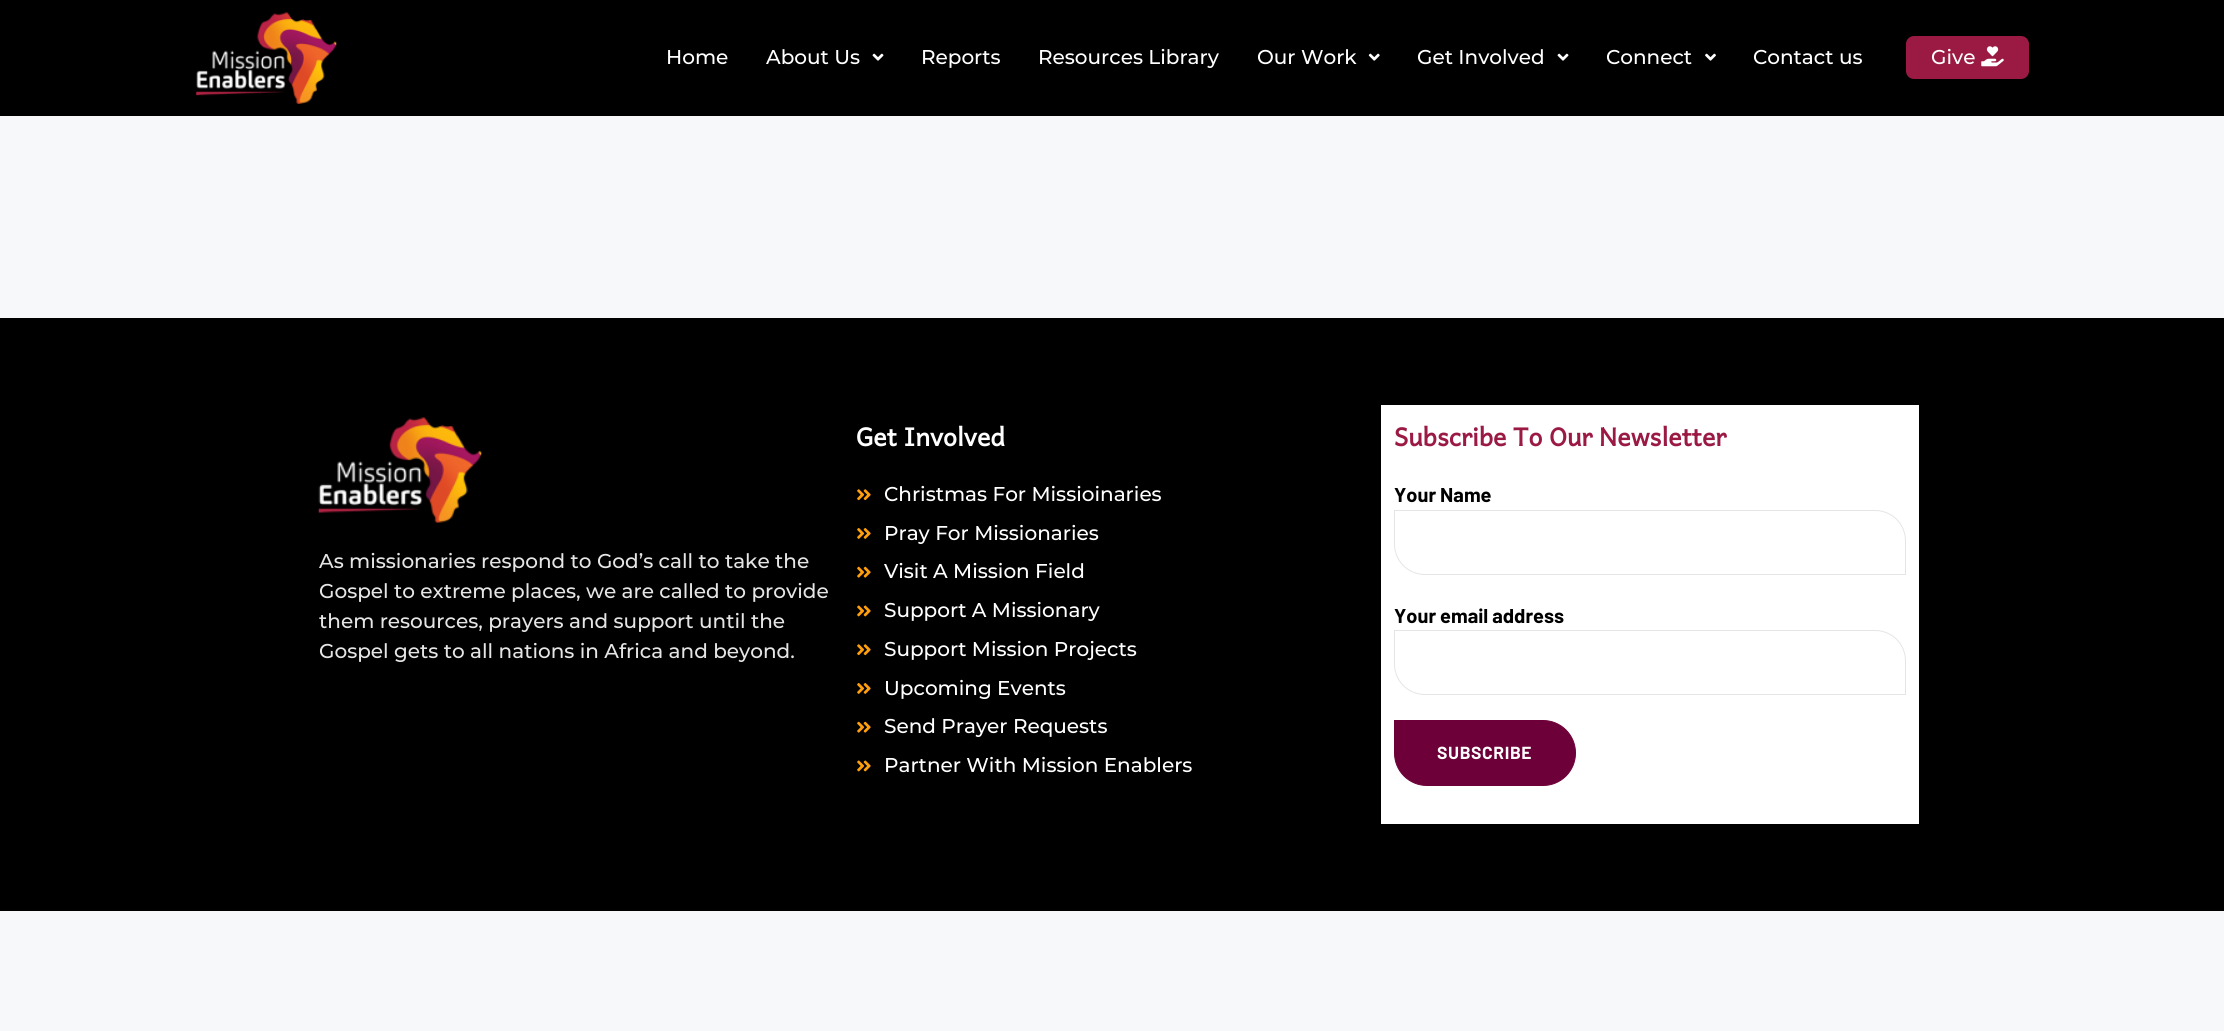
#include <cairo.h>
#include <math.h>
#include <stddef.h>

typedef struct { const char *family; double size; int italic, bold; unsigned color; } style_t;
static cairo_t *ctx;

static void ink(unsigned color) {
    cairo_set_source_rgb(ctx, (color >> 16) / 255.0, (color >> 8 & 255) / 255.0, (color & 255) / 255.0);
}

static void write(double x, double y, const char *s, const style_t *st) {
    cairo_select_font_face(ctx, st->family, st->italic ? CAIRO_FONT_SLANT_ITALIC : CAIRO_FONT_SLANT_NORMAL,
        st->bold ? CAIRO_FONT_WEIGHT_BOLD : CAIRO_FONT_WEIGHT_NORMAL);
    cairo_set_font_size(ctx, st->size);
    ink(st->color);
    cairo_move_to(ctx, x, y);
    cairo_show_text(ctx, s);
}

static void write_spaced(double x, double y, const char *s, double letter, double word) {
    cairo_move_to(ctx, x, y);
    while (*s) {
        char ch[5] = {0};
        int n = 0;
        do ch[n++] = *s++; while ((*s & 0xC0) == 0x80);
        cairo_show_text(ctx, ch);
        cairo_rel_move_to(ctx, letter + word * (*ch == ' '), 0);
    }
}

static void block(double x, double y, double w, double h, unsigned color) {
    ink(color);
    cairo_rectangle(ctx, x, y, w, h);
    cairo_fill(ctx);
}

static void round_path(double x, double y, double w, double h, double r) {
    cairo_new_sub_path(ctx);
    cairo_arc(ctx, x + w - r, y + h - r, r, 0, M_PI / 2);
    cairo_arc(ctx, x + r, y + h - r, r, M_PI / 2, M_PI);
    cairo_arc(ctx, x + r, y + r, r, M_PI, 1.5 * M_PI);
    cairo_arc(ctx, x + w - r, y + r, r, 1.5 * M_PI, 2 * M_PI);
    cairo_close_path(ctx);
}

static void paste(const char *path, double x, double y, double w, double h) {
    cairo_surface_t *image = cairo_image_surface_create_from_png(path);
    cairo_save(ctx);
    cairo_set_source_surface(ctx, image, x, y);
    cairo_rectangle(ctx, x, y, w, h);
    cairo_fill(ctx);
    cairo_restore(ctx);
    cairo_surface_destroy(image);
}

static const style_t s1 = {"Montserrat Medium", 20, 0, 0, 0xffffff};
static const style_t s2 = {"Montserrat Medium", 20, 0, 0, 0xe5e5e5};
static const style_t s3 = {"Andika", 25, 0, 1, 0xffffff};
static const style_t s4 = {"Andika", 25, 0, 1, 0x9b1a43};
static const style_t s5 = {"Barlow", 20, 0, 1, 0x000000};

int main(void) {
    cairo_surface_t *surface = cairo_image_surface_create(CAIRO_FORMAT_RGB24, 2224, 1031);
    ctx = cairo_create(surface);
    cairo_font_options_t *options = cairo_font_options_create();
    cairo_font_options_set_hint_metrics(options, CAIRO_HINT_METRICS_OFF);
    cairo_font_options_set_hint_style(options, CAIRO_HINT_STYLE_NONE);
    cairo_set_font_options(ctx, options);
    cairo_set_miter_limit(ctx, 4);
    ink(0xf7f8f9);
    cairo_paint(ctx);
    block(0, 0, 2224, 116, 0x000000);
    paste("pic1.png", 196, 12, 141, 92);
    write(666, 64, "Home", &s1);
    write(766, 64, "About Us", &s1);
    paste("pic2.png", 872, 53, 12, 8);
    write(921, 64, "Reports", &s1);
    write(1038, 64, "Resources Library", &s1);
    write(1257, 64, "Our Work", &s1);
    paste("pic3.png", 1368, 53, 12, 8);
    write(1417, 64, "Get Involved", &s1);
    paste("pic2.png", 1557, 53, 12, 8);
    write(1606, 64, "Connect", &s1);
    paste("pic4.png", 1705, 53, 11, 8);
    write(1753, 64, "Contact us", &s1);
    ink(0x9b1a43);
    round_path(1906, 36, 123, 43, 8);
    cairo_fill(ctx);
    write(1931, 64, "Give", &s1);
    paste("pic5.png", 1981, 46, 23, 21);
    block(0, 318, 2224, 593, 0x000000);
    paste("pic6.png", 318, 417, 164, 106);
    write(319, 568, "As missionaries respond to God’s call to take the", &s2);
    write(319, 598, "Gospel to extreme places, we are called to provide", &s2);
    write(319, 628, "them resources, prayers and support until the", &s2);
    write(319, 658, "Gospel gets to all nations in Africa and beyond.", &s2);
    write(856, 446, "Get Involved", &s3);
    paste("pic7.png", 857, 489, 14, 12);
    write(884, 501, "Christmas For Missioinaries", &s1);
    paste("pic8.png", 857, 528, 14, 11);
    write(884, 540, "Pray For Missionaries", &s1);
    paste("pic9.png", 857, 566, 14, 12);
    write(884, 578, "Visit A Mission Field", &s1);
    paste("pic10.png", 857, 605, 14, 12);
    write(884, 617, "Support A Missionary", &s1);
    paste("pic7.png", 857, 644, 14, 12);
    write(884, 656, "Support Mission Projects", &s1);
    paste("pic8.png", 857, 683, 14, 11);
    write(884, 695, "Upcoming Events", &s1);
    paste("pic9.png", 857, 721, 14, 12);
    write(884, 733, "Send Prayer Requests", &s1);
    paste("pic10.png", 857, 760, 14, 12);
    write(884, 772, "Partner With Mission Enablers", &s1);
    block(1381, 405, 538, 419, 0xffffff);
    write(1394, 446, "Subscribe To Our Newsletter", &s4);
    write(1394, 502, "Your Name", &s5);
    cairo_new_path(ctx);
    cairo_move_to(ctx, 1394.5, 510.5);
    cairo_line_to(ctx, 1875, 510.5);
    cairo_curve_to(ctx, 1892, 510.5, 1905.5, 524, 1905.5, 541);
    cairo_line_to(ctx, 1905.5, 574.5);
    cairo_line_to(ctx, 1425, 574.5);
    cairo_curve_to(ctx, 1408, 574.5, 1394.5, 561, 1394.5, 544);
    cairo_close_path(ctx);
    ink(0xe5e5e5);
    cairo_set_line_width(ctx, 1);
    cairo_stroke(ctx);
    write(1394, 623, "Your email address", &s5);
    cairo_new_path(ctx);
    cairo_move_to(ctx, 1394.5, 630.5);
    cairo_line_to(ctx, 1875, 630.5);
    cairo_curve_to(ctx, 1892, 630.5, 1905.5, 644, 1905.5, 661);
    cairo_line_to(ctx, 1905.5, 694.5);
    cairo_line_to(ctx, 1425, 694.5);
    cairo_curve_to(ctx, 1408, 694.5, 1394.5, 681, 1394.5, 664);
    cairo_close_path(ctx);
    ink(0xe5e5e5);
    cairo_stroke(ctx);
    ink(0x6d0038);
    cairo_new_path(ctx);
    cairo_move_to(ctx, 1394.5, 720.5);
    cairo_line_to(ctx, 1543, 720.5);
    cairo_curve_to(ctx, 1561, 720.5, 1575.5, 735, 1575.5, 753);
    cairo_curve_to(ctx, 1575.5, 771, 1561, 785.5, 1543, 785.5);
    cairo_line_to(ctx, 1427, 785.5);
    cairo_curve_to(ctx, 1409, 785.5, 1394.5, 771, 1394.5, 753);
    cairo_close_path(ctx);
    cairo_fill_preserve(ctx);
    cairo_stroke(ctx);
    cairo_set_font_size(ctx, 17.5);
    ink(0xffffff);
    write_spaced(1437, 759, "SUBSCRIBE", 0.6, 0);
    cairo_surface_write_to_png(surface, "screenshot.png");
    cairo_font_options_destroy(options);
    cairo_destroy(ctx);
    cairo_surface_destroy(surface);
    return 0;
}
